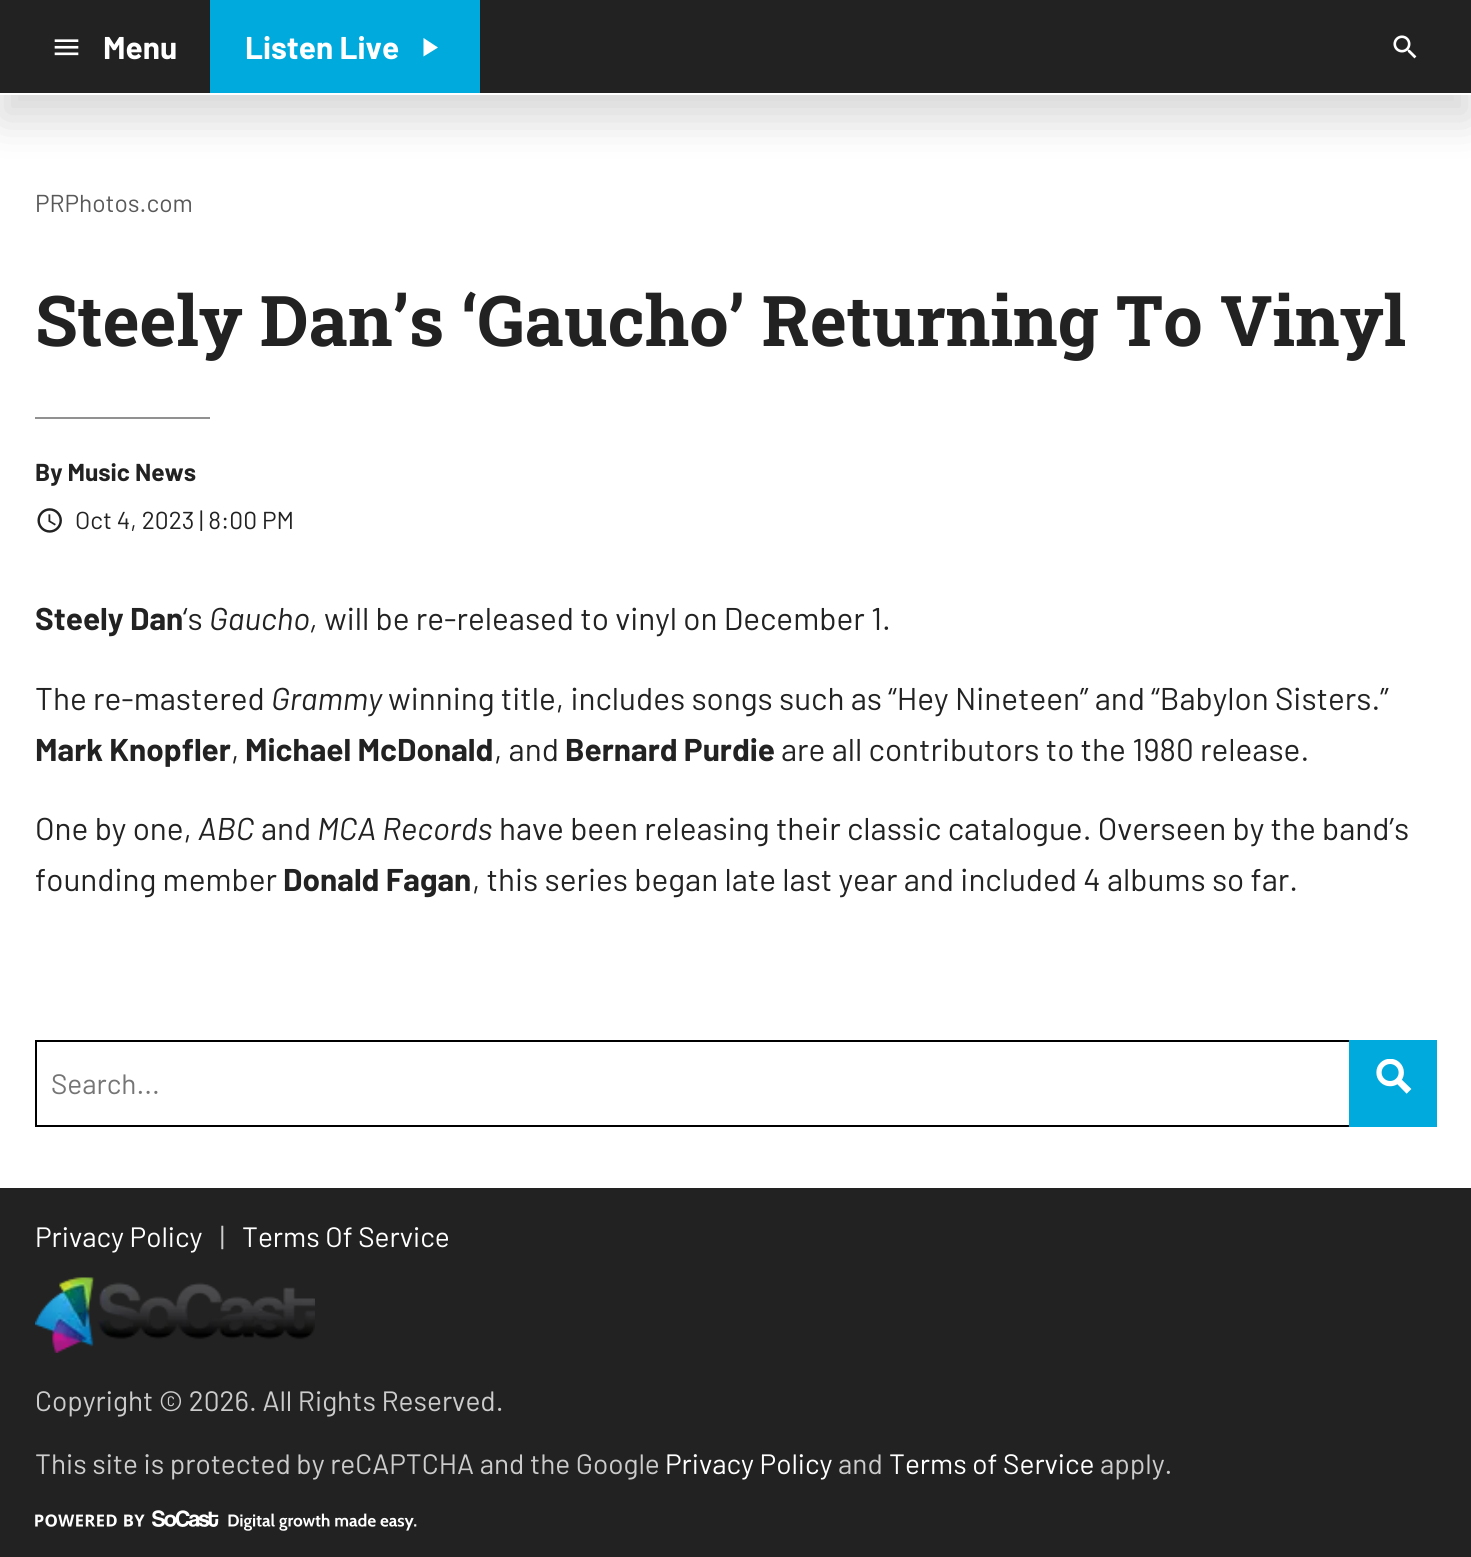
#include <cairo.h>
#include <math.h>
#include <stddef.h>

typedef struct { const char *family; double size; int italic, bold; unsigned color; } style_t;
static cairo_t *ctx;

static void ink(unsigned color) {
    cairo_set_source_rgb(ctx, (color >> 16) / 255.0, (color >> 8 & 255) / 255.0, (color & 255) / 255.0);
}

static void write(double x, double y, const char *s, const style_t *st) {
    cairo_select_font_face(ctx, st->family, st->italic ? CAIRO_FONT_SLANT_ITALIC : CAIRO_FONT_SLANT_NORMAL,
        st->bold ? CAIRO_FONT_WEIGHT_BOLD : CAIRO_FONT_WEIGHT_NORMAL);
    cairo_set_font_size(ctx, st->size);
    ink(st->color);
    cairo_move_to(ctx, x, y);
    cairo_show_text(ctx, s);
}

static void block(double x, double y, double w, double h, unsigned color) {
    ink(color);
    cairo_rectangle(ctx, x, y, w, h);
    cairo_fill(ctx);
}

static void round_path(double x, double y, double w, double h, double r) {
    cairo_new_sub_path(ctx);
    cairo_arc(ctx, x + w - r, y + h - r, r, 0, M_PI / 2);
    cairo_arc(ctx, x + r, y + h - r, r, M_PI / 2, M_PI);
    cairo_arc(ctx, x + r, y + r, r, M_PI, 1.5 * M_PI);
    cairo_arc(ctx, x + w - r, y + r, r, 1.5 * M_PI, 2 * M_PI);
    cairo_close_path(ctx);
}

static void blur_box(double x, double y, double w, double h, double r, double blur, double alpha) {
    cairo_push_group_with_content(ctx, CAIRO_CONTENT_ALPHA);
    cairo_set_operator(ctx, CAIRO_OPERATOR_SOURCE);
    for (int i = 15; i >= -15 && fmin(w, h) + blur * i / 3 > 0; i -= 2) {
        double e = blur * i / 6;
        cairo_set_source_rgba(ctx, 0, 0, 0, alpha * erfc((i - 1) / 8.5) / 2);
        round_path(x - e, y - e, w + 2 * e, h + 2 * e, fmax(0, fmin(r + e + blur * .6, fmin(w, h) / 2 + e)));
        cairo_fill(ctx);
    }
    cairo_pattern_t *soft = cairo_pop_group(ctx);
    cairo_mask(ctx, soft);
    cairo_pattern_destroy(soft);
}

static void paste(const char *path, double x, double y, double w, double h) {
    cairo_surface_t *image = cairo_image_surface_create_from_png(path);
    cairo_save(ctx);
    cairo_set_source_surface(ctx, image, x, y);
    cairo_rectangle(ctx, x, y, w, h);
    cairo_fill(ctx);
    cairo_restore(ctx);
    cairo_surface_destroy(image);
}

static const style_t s1 = {"Barlow", 31.5, 0, 1, 0xffffff};
static const style_t s2 = {"Barlow", 24.5, 0, 0, 0x595959};
static const style_t s3 = {"Roboto Slab", 70, 0, 1, 0x222222};
static const style_t s4 = {"Barlow", 24.5, 0, 1, 0x222222};
static const style_t s5 = {"Barlow", 24.5, 0, 0, 0x222222};
static const style_t s6 = {"Barlow", 31.5, 0, 1, 0x222222};
static const style_t s7 = {"Barlow", 31.5, 0, 0, 0x222222};
static const style_t s8 = {"Barlow", 31.5, 1, 0, 0x222222};
static const style_t s9 = {"Barlow", 28, 0, 0, 0x757575};
static const style_t s10 = {"Barlow", 28, 0, 0, 0xffffff};
static const style_t s11 = {"Barlow", 28, 0, 0, 0xcccccc};

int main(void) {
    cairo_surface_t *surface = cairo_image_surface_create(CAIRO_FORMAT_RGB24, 1471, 1557);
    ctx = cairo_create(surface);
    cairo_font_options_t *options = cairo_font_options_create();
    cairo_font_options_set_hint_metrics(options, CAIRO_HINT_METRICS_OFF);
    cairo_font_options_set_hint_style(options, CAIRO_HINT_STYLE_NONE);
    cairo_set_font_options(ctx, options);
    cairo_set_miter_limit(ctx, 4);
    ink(0xffffff);
    cairo_paint(ctx);
    ink(0x000000);
    blur_box(0, 25, 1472, 94, 0, 22, 0.16);
    block(0, 0, 1471, 93, 0x222222);
    block(0, 93, 1471, 2, 0xffffff);
    paste("pic1.png", 54, 39, 25, 17);
    write(103, 59, "Menu", &s1);
    block(210, 0, 270, 93, 0x00aadc);
    write(245, 59, "Listen Live", &s1);
    cairo_new_path(ctx);
    cairo_move_to(ctx, 423.5, 38);
    cairo_line_to(ctx, 423.5, 56.5);
    cairo_line_to(ctx, 438, 47.5);
    cairo_close_path(ctx);
    cairo_fill(ctx);
    paste("pic2.png", 1393, 35, 24, 24);
    write(35, 212, "PRPhotos.com", &s2);
    write(35, 346, "Steely Dan’s ‘Gaucho’ Returning To Vinyl", &s3);
    block(35, 417, 175, 2, 0x919191);
    write(35, 481, "By Music News", &s4);
    paste("pic3.png", 37, 508, 25, 25);
    write(75, 529, "Oct 4, 2023 | 8:00 PM", &s5);
    write(35, 630, "Steely Dan", &s6);
    write(183, 630, "‘s", &s7);
    write(209, 630, "Gaucho,", &s8);
    write(324, 630, "will be re-released to vinyl on December 1.", &s7);
    write(35, 710, "The re-mastered", &s7);
    write(271, 710, "Grammy", &s8);
    write(388, 710, "winning title, includes songs such as “Hey Nineteen” and “Babylon Sisters.”", &s7);
    write(35, 761, "Mark Knopfler", &s6);
    write(231, 761, ",", &s7);
    write(245, 761, "Michael McDonald", &s6);
    write(494, 761, ", and", &s7);
    write(565, 761, "Bernard Purdie", &s6);
    write(781, 761, "are all contributors to the 1980 release.", &s7);
    write(35, 840, "One by one,", &s7);
    write(198, 840, "ABC", &s8);
    write(261, 840, "and", &s7);
    write(317, 840, "MCA Records", &s8);
    write(499, 840, "have been releasing their classic catalogue. Overseen by the band’s", &s7);
    write(35, 891, "founding member", &s7);
    write(283, 891, "Donald Fagan", &s6);
    write(472, 891, ", this series began late last year and included 4 albums so far.", &s7);
    cairo_rectangle(ctx, 36, 1041, 1400, 85);
    ink(0x000000);
    cairo_stroke(ctx);
    write(51, 1094, "Search...", &s9);
    block(1349, 1040, 88, 87, 0x00aadc);
    paste("pic4.png", 1376, 1059, 36, 35);
    block(0, 1188, 1471, 369, 0x222222);
    write(35, 1247, "Privacy Policy", &s10);
    write(220, 1247, "|", &s11);
    write(242, 1247, "Terms Of Service", &s10);
    paste("pic5.png", 35, 1277, 280, 76);
    write(35, 1411, "Copyright © 2026. All Rights Reserved.", &s11);
    write(35, 1474, "This site is protected by reCAPTCHA and the Google", &s11);
    write(665, 1474, "Privacy Policy", &s10);
    write(838, 1474, "and", &s11);
    write(889, 1474, "Terms of Service", &s10);
    write(1100, 1474, "apply.", &s11);
    paste("pic6.png", 35, 1510, 382, 21);
    cairo_surface_write_to_png(surface, "screenshot.png");
    cairo_font_options_destroy(options);
    cairo_destroy(ctx);
    cairo_surface_destroy(surface);
    return 0;
}
